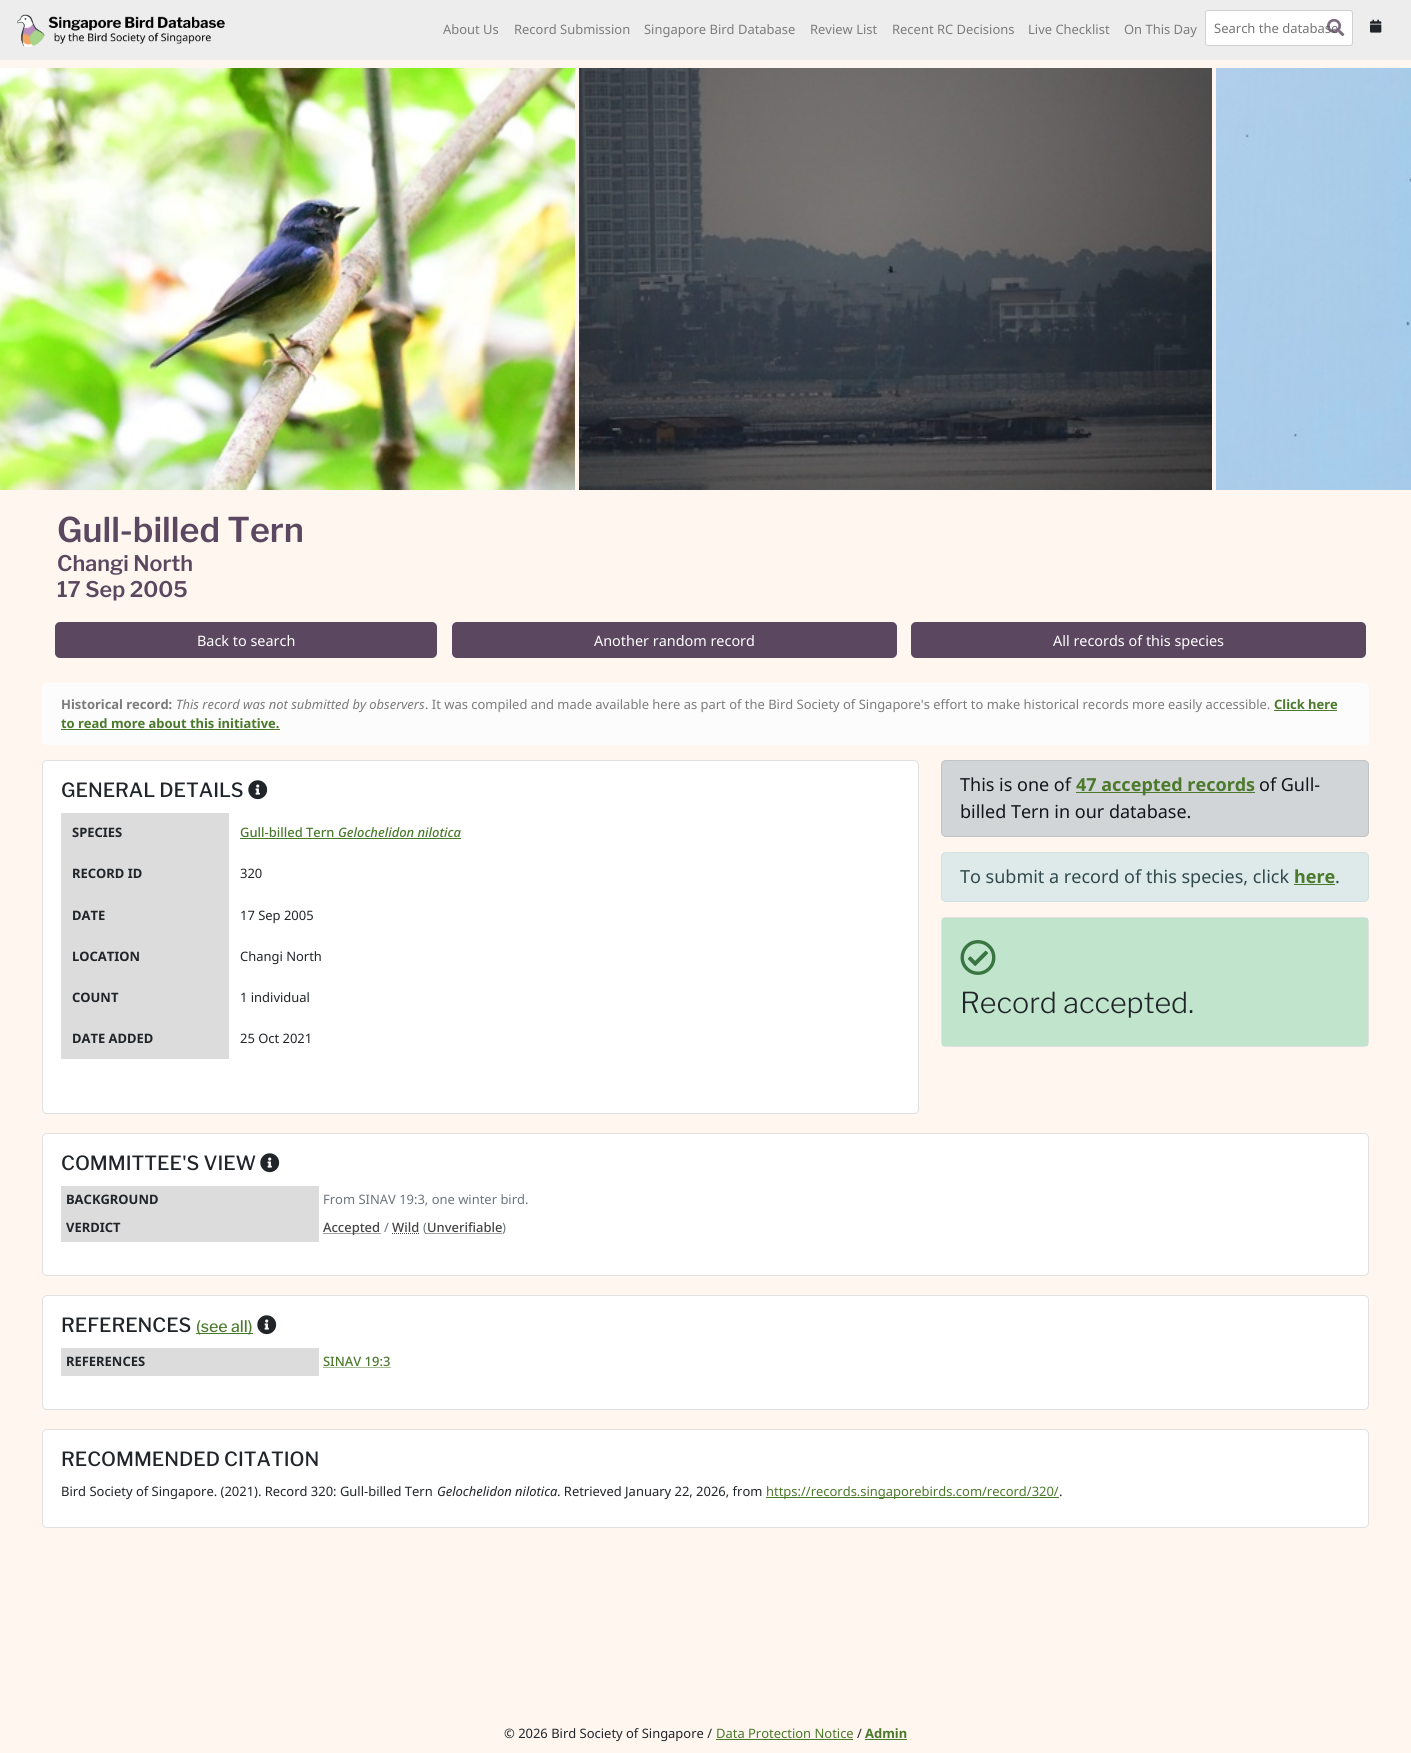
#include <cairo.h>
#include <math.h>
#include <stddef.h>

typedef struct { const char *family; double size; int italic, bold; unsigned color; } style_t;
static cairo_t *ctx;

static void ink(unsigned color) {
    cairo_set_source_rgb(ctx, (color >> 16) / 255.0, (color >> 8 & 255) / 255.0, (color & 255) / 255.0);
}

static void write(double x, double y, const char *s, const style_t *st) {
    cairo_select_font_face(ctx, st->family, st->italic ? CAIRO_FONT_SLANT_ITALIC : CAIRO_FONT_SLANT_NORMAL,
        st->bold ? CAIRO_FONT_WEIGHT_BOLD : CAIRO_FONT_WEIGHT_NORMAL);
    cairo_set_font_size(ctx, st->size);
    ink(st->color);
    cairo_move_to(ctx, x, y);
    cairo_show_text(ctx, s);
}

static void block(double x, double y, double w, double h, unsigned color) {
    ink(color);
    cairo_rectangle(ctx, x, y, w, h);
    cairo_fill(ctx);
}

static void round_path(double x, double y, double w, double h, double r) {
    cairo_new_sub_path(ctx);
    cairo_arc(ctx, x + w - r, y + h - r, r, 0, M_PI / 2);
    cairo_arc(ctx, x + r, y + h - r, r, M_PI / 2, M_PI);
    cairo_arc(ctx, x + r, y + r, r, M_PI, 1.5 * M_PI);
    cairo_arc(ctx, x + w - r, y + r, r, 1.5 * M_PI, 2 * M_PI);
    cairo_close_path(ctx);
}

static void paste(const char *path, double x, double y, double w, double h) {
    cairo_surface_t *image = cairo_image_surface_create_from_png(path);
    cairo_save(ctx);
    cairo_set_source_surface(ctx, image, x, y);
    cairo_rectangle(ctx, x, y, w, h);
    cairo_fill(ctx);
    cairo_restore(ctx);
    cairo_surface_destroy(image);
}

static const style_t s1 = {"Noto Sans", 12.95, 0, 0, 0x7b7c7b};
static const style_t s2 = {"Noto Sans", 13, 0, 0, 0x757575};
static const style_t s3 = {"Libre Franklin SemiBold", 34, 0, 0, 0x5c4760};
static const style_t s4 = {"Libre Franklin SemiBold", 21.5, 0, 0, 0x5c4760};
static const style_t s5 = {"Noto Sans", 14.4, 0, 0, 0xffffff};
static const style_t s6 = {"Noto Sans", 12.95, 0, 1, 0x7b7c7b};
static const style_t s7 = {"Noto Sans", 12.95, 1, 0, 0x7b7c7b};
static const style_t s8 = {"Noto Sans", 12.95, 0, 1, 0x4c7a2d};
static const style_t s9 = {"Libre Franklin Medium", 19.5, 0, 0, 0x212529};
static const style_t s10 = {"Noto Sans", 12.95, 0, 1, 0x212529};
static const style_t s11 = {"Noto Sans Medium", 12.95, 0, 0, 0x4c7a2d};
static const style_t s12 = {"Noto Sans Medium", 12.95, 1, 0, 0x4c7a2d};
static const style_t s13 = {"Noto Sans", 12.95, 0, 0, 0x212529};
static const style_t s14 = {"Noto Sans", 18, 0, 0, 0x10161d};
static const style_t s15 = {"Noto Sans", 18, 0, 1, 0x4c7a2d};
static const style_t s16 = {"Noto Sans", 18, 0, 0, 0x304a4d};
static const style_t s17 = {"Libre Franklin Light", 28.75, 0, 0, 0x212529};
static const style_t s18 = {"Noto Sans", 12.95, 0, 0, 0x6c757d};
static const style_t s19 = {"Noto Sans Medium", 12.95, 0, 0, 0x444444};
static const style_t s20 = {"Libre Franklin Medium", 16, 0, 0, 0x4c7a2d};
static const style_t s21 = {"Noto Sans", 12.95, 1, 0, 0x212529};
static const style_t s22 = {"Noto Sans", 12.95, 0, 0, 0x4c7a2d};

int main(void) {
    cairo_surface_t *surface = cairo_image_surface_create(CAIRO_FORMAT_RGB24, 1411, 1753);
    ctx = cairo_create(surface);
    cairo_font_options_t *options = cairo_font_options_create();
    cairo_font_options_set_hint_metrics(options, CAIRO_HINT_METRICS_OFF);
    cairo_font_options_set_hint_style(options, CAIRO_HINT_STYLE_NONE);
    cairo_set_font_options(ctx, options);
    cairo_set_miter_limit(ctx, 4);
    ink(0xfef6ef);
    cairo_paint(ctx);
    block(0, 0, 1411, 60, 0xededed);
    paste("pic1.png", 17, 14, 208, 33);
    write(443, 34, "About Us", &s1);
    write(514, 34, "Record Submission", &s1);
    write(644, 34, "Singapore Bird Database", &s1);
    write(810, 34, "Review List", &s1);
    write(892, 34, "Recent RC Decisions", &s1);
    write(1028, 34, "Live Checklist", &s1);
    write(1124, 34, "On This Day", &s1);
    ink(0xffffff);
    round_path(1205.5, 10.5, 147, 35, 2.5);
    cairo_fill_preserve(ctx);
    ink(0xd0d0d0);
    cairo_set_line_width(ctx, 1);
    cairo_stroke(ctx);
    write(1214, 33, "Search the database", &s2);
    paste("pic2.png", 1327, 18, 18, 19);
    paste("pic3.png", 1370, 19, 12, 14);
    paste("pic4.png", 0, 68, 575, 422);
    paste("pic5.png", 579, 68, 633, 422);
    paste("pic6.png", 1216, 68, 195, 422);
    write(57, 542, "Gull-billed Tern", &s3);
    write(57, 571, "Changi North", &s4);
    write(57, 597, "17 Sep 2005", &s4);
    round_path(55, 622, 382, 36, 5);
    cairo_fill(ctx);
    write(197, 646, "Back to search", &s5);
    ink(0x5c4760);
    round_path(452, 622, 445, 36, 5);
    cairo_fill(ctx);
    write(594, 646, "Another random record", &s5);
    ink(0x5c4760);
    round_path(911, 622, 455, 36, 5);
    cairo_fill(ctx);
    write(1053, 646, "All records of this species", &s5);
    ink(0xfbfcfb);
    round_path(42, 683, 1327, 62, 5);
    cairo_fill(ctx);
    write(61, 709, "Historical record:", &s6);
    write(176, 709, "This record was not submitted by observers", &s7);
    write(425, 709, ". It was compiled and made available here as part of the Bird Society of Singapore's effort to make historical records more easily accessible.", &s1);
    write(1274, 709, "Click here", &s8);
    block(1274, 710, 63, 1, 0x4c7a2d);
    write(61, 728, "to read more about this initiative.", &s8);
    block(61, 729, 219, 1, 0x4c7a2d);
    ink(0xffffff);
    round_path(42, 760, 877, 354, 5);
    cairo_fill(ctx);
    round_path(42.5, 760.5, 876, 353, 4.5);
    cairo_set_source_rgba(ctx, 0, 0, 0, 0.12);
    cairo_stroke(ctx);
    write(61, 797, "GENERAL DETAILS", &s9);
    paste("pic7.png", 248, 780, 20, 20);
    block(61, 813, 168, 246, 0xdcdcdc);
    write(72, 837, "SPECIES", &s10);
    write(240, 837, "Gull-billed Tern", &s11);
    block(240, 838, 221, 1, 0x4c7a2d);
    write(338, 837, "Gelochelidon nilotica", &s12);
    write(72, 878, "RECORD ID", &s10);
    write(240, 878, "320", &s13);
    write(72, 920, "DATE", &s10);
    write(240, 920, "17 Sep 2005", &s13);
    write(72, 961, "LOCATION", &s10);
    write(240, 961, "Changi North", &s13);
    write(72, 1002, "COUNT", &s10);
    write(240, 1002, "1 individual", &s13);
    write(72, 1043, "DATE ADDED", &s10);
    write(240, 1043, "25 Oct 2021", &s13);
    ink(0xd2d5d7);
    round_path(941.5, 760.5, 427, 76, 4.5);
    cairo_fill_preserve(ctx);
    ink(0xc0c4c7);
    cairo_stroke(ctx);
    write(960, 791, "This is one of", &s14);
    block(1076, 792, 179, 1, 0x4c7a2d);
    write(1076, 791, "47 accepted records", &s15);
    write(1259, 791, "of Gull-", &s14);
    write(960, 818, "billed Tern in our database.", &s14);
    ink(0xdee9ea);
    round_path(941.5, 852.5, 427, 49, 4.5);
    cairo_fill_preserve(ctx);
    ink(0xd1e0e1);
    cairo_stroke(ctx);
    write(960, 883, "To submit a record of this species, click", &s16);
    write(1294, 883, "here", &s15);
    block(1294, 884, 41, 1, 0x4c7a2d);
    write(1335, 883, ".", &s16);
    ink(0xffffff);
    round_path(941, 917, 428, 130, 5);
    cairo_fill(ctx);
    round_path(941.5, 917.5, 427, 129, 4.5);
    cairo_set_source_rgba(ctx, 0, 0, 0, 0.12);
    cairo_stroke(ctx);
    block(942, 918, 426, 128, 0xc0e5cc);
    paste("pic8.png", 960, 940, 36, 35);
    write(960, 1013, "Record accepted.", &s17);
    ink(0xffffff);
    round_path(42, 1133, 1327, 143, 5);
    cairo_fill(ctx);
    round_path(42.5, 1133.5, 1326, 142, 4.5);
    cairo_set_source_rgba(ctx, 0, 0, 0, 0.12);
    cairo_stroke(ctx);
    write(61, 1170, "COMMITTEE'S VIEW", &s9);
    paste("pic7.png", 260, 1153, 20, 20);
    block(61, 1186, 258, 56, 0xdcdcdc);
    write(66, 1204, "BACKGROUND", &s10);
    write(323, 1204, "From SINAV 19:3, one winter bird.", &s18);
    write(66, 1232, "VERDICT", &s10);
    cairo_new_path(ctx);
    cairo_move_to(ctx, 323.5, 1233.5);
    cairo_line_to(ctx, 380.5, 1233.5);
    ink(0x444444);
    cairo_set_dash(ctx, (double[]){1, 1}, 2, 0);
    cairo_stroke(ctx);
    write(323, 1232, "Accepted", &s19);
    write(384, 1232, "/", &s18);
    write(392, 1232, "Wild", &s19);
    cairo_new_path(ctx);
    cairo_move_to(ctx, 392, 1233.5);
    cairo_line_to(ctx, 419.5, 1233.5);
    cairo_stroke(ctx);
    write(423, 1232, "(", &s18);
    write(427, 1232, "Unverifiable", &s19);
    cairo_new_path(ctx);
    cairo_move_to(ctx, 426.5, 1233.5);
    cairo_line_to(ctx, 502, 1233.5);
    cairo_stroke(ctx);
    write(502, 1232, ")", &s18);
    ink(0xffffff);
    round_path(42, 1295, 1327, 115, 5);
    cairo_fill(ctx);
    round_path(42.5, 1295.5, 1326, 114, 4.5);
    cairo_set_source_rgba(ctx, 0, 0, 0, 0.12);
    cairo_set_dash(ctx, NULL, 0, 0);
    cairo_stroke(ctx);
    write(61, 1332, "REFERENCES", &s9);
    block(196, 1333, 57, 1, 0x4c7a2d);
    write(196, 1332, "(see all)", &s20);
    paste("pic7.png", 257, 1315, 20, 20);
    block(61, 1348, 258, 28, 0xdcdcdc);
    write(66, 1366, "REFERENCES", &s10);
    write(323, 1366, "SINAV 19:3", &s11);
    cairo_new_path(ctx);
    cairo_move_to(ctx, 323.5, 1367.5);
    cairo_line_to(ctx, 390.5, 1367.5);
    cairo_set_dash(ctx, (double[]){1, 1}, 2, 0);
    cairo_stroke(ctx);
    ink(0xffffff);
    round_path(42, 1429, 1327, 99, 5);
    cairo_fill(ctx);
    round_path(42.5, 1429.5, 1326, 98, 4.5);
    cairo_set_source_rgba(ctx, 0, 0, 0, 0.12);
    cairo_set_dash(ctx, NULL, 0, 0);
    cairo_stroke(ctx);
    write(61, 1466, "RECOMMENDED CITATION", &s9);
    write(61, 1496, "Bird Society of Singapore. (2021). Record 320: Gull-billed Tern", &s13);
    write(437, 1496, "Gelochelidon nilotica", &s21);
    write(557, 1496, ". Retrieved January 22, 2026, from", &s13);
    block(766, 1497, 293, 1, 0x4c7a2d);
    write(766, 1496, "https://records.singaporebirds.com/record/320/", &s22);
    write(1059, 1496, ".", &s13);
    write(504, 1738, "© 2026 Bird Society of Singapore /", &s13);
    write(716, 1738, "Data Protection Notice", &s22);
    block(716, 1739, 137, 1, 0x4c7a2d);
    write(857, 1738, "/", &s13);
    write(865, 1738, "Admin", &s8);
    block(865, 1739, 42, 1, 0x4c7a2d);
    cairo_surface_write_to_png(surface, "screenshot.png");
    cairo_font_options_destroy(options);
    cairo_destroy(ctx);
    cairo_surface_destroy(surface);
    return 0;
}
